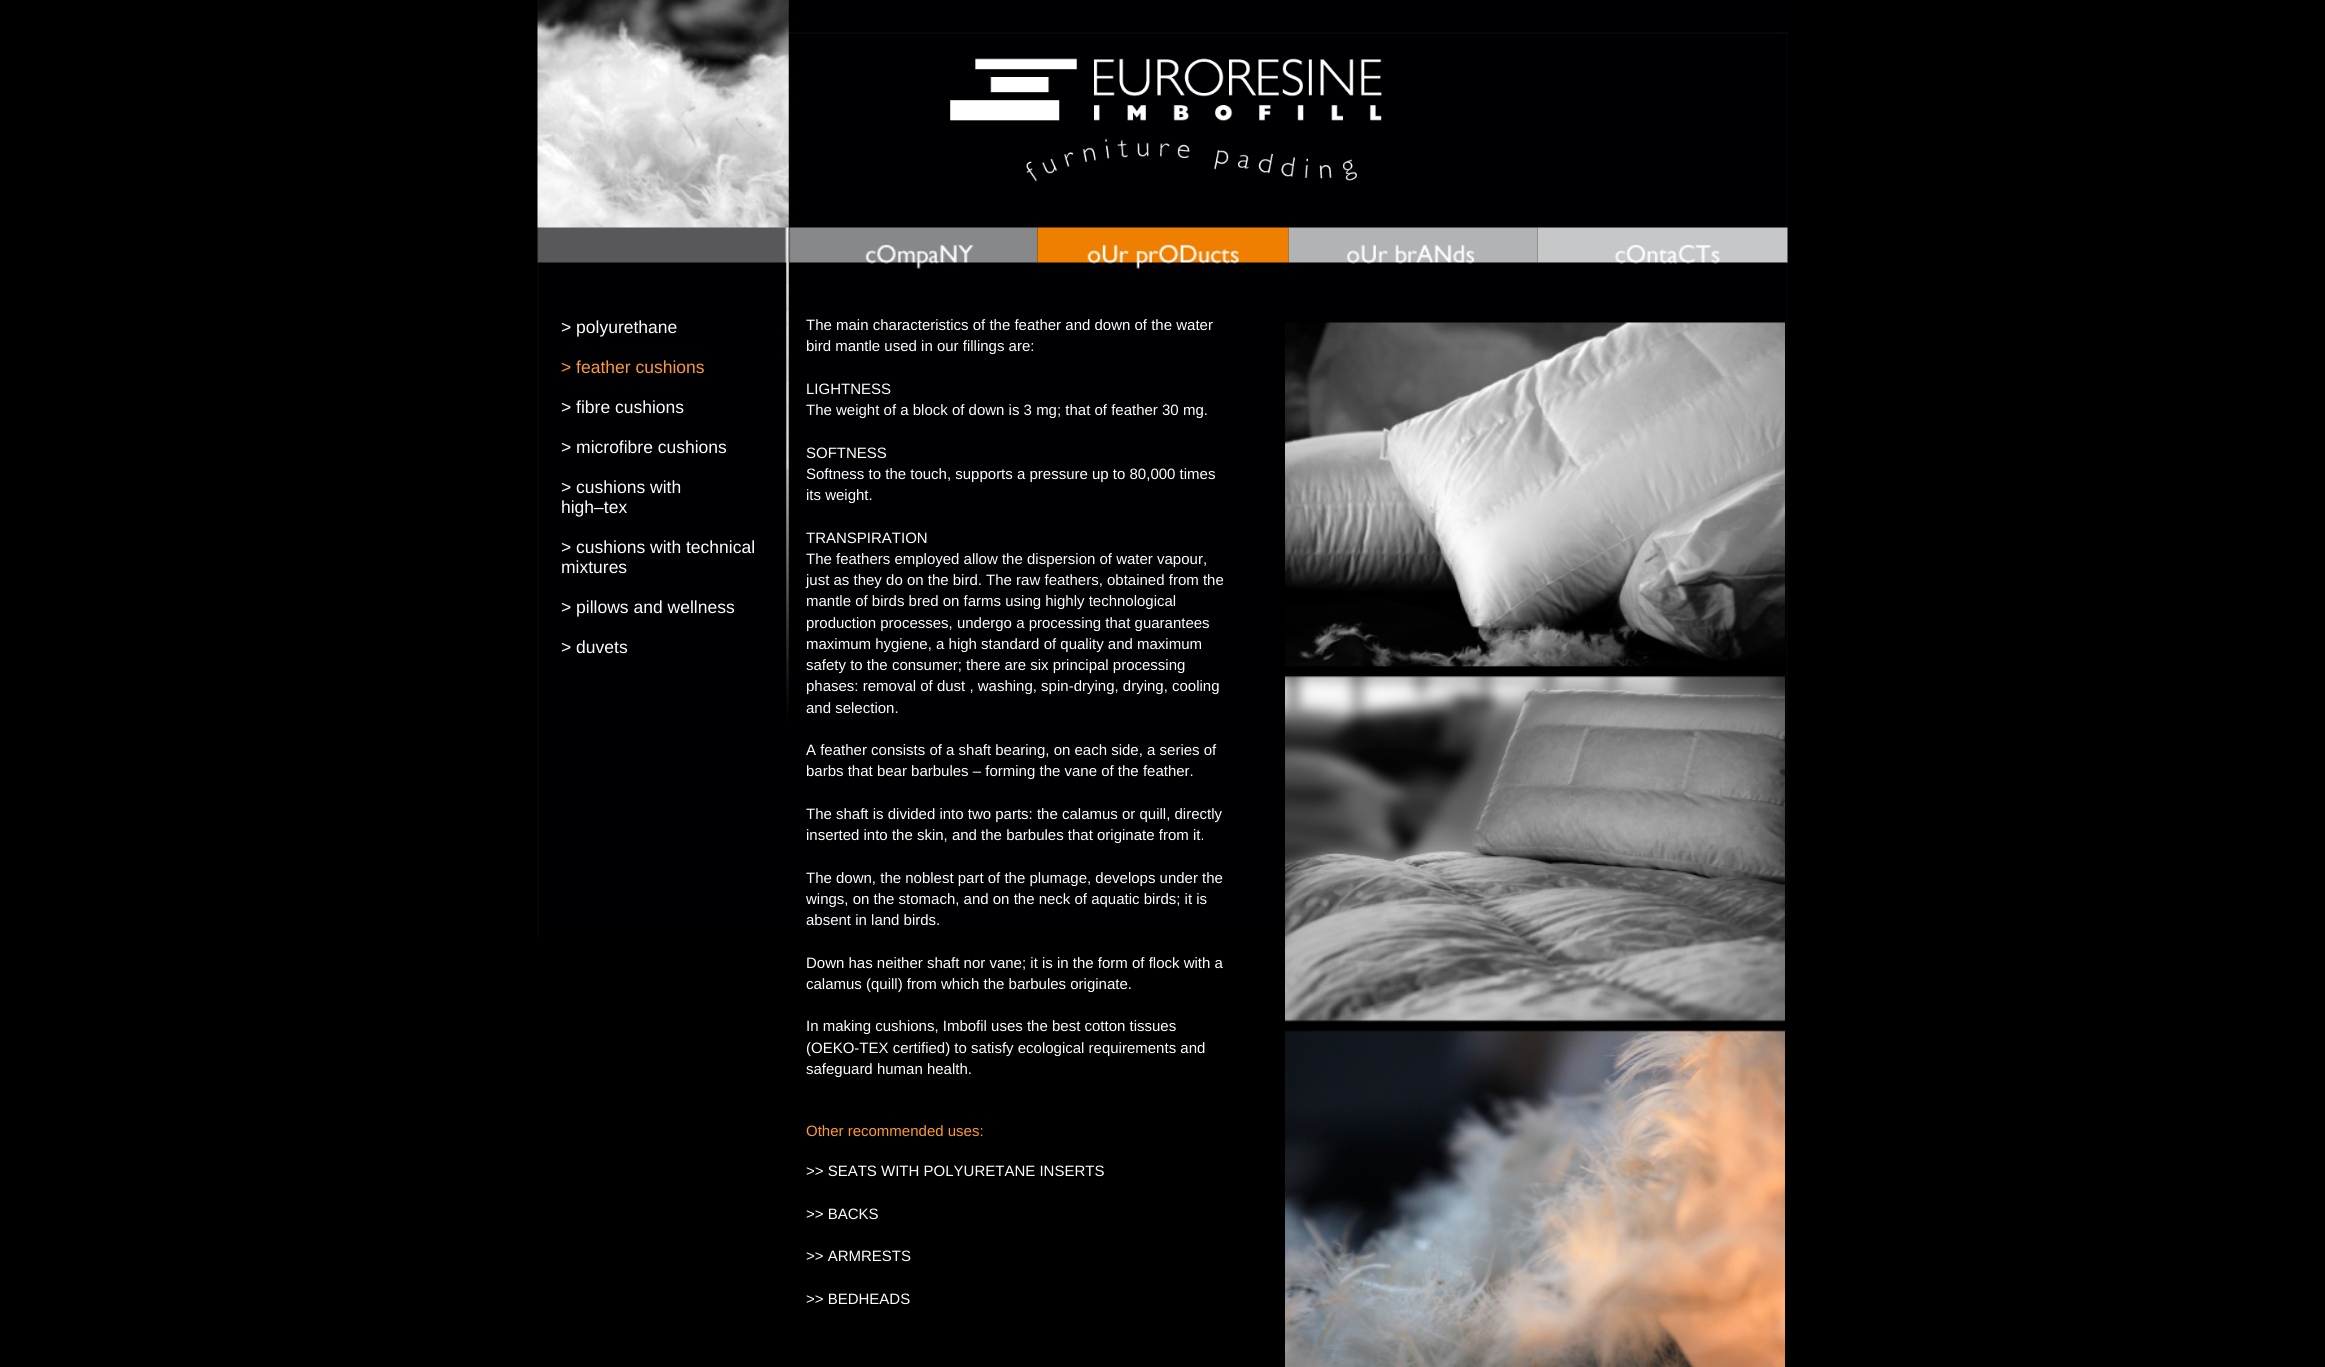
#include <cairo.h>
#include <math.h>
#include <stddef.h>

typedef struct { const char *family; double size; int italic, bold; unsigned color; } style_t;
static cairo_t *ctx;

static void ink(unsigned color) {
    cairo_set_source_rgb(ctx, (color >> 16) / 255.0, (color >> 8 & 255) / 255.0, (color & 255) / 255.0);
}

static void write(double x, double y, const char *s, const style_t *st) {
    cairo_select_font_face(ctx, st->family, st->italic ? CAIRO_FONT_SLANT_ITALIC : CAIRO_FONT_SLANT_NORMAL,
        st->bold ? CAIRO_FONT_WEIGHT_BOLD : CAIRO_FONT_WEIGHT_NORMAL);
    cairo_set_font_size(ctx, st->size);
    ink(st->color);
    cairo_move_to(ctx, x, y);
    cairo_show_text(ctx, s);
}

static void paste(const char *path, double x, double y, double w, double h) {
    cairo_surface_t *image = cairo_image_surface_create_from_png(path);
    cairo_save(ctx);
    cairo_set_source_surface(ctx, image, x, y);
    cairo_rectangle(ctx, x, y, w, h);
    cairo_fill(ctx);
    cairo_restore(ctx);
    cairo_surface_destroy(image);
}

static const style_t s1 = {"Liberation Sans", 17.5, 0, 0, 0xffffff};
static const style_t s2 = {"Liberation Sans", 17.5, 0, 0, 0xff9933};
static const style_t s3 = {"Liberation Sans", 15, 0, 0, 0xffffff};
static const style_t s4 = {"Liberation Sans", 15, 0, 0, 0xff9933};

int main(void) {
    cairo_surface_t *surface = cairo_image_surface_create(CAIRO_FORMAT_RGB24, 2325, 1367);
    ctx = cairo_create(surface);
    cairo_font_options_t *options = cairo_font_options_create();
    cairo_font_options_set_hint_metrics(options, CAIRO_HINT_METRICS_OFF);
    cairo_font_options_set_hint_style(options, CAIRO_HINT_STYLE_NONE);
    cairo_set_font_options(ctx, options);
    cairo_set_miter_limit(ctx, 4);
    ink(0x000000);
    cairo_paint(ctx);
    paste("pic1.png", 537, 0, 1251, 938);
    paste("pic2.png", 950, 58, 432, 124);
    paste("pic3.png", 788, 227, 250, 42);
    paste("pic4.png", 1037, 227, 252, 42);
    paste("pic5.png", 1288, 227, 250, 37);
    paste("pic6.png", 1537, 227, 251, 37);
    write(561, 333, "> polyurethane", &s1);
    write(561, 373, "> feather cushions", &s2);
    write(561, 413, "> fibre cushions", &s1);
    write(561, 453, "> microfibre cushions", &s1);
    write(561, 493, "> cushions with", &s1);
    write(561, 513, "high–tex", &s1);
    write(561, 553, "> cushions with technical", &s1);
    write(561, 573, "mixtures", &s1);
    write(561, 613, "> pillows and wellness", &s1);
    write(561, 653, "> duvets", &s1);
    write(806, 330, "The main characteristics of the feather and down of the water", &s3);
    write(806, 351, "bird mantle used in our fillings are:", &s3);
    write(806, 394, "LIGHTNESS", &s3);
    write(806, 415, "The weight of a block of down is 3 mg; that of feather 30 mg.", &s3);
    write(806, 458, "SOFTNESS", &s3);
    write(806, 479, "Softness to the touch, supports a pressure up to 80,000 times", &s3);
    write(806, 500, "its weight.", &s3);
    write(806, 543, "TRANSPIRATION", &s3);
    write(806, 564, "The feathers employed allow the dispersion of water vapour,", &s3);
    write(806, 585, "just as they do on the bird. The raw feathers, obtained from the", &s3);
    write(806, 606, "mantle of birds bred on farms using highly technological", &s3);
    write(806, 628, "production processes, undergo a processing that guarantees", &s3);
    write(806, 649, "maximum hygiene, a high standard of quality and maximum", &s3);
    write(806, 670, "safety to the consumer; there are six principal processing", &s3);
    write(806, 691, "phases: removal of dust , washing, spin-drying, drying, cooling", &s3);
    write(806, 713, "and selection.", &s3);
    write(806, 755, "A feather consists of a shaft bearing, on each side, a series of", &s3);
    write(806, 776, "barbs that bear barbules – forming the vane of the feather.", &s3);
    write(806, 819, "The shaft is divided into two parts: the calamus or quill, directly", &s3);
    write(806, 840, "inserted into the skin, and the barbules that originate from it.", &s3);
    write(806, 883, "The down, the noblest part of the plumage, develops under the", &s3);
    write(806, 904, "wings, on the stomach, and on the neck of aquatic birds; it is", &s3);
    write(806, 925, "absent in land birds.", &s3);
    write(806, 968, "Down has neither shaft nor vane; it is in the form of flock with a", &s3);
    write(806, 989, "calamus (quill) from which the barbules originate.", &s3);
    write(806, 1031, "In making cushions, Imbofil uses the best cotton tissues", &s3);
    write(806, 1053, "(OEKO-TEX certified) to satisfy ecological requirements and", &s3);
    write(806, 1074, "safeguard human health.", &s3);
    write(806, 1136, "Other recommended uses:", &s4);
    write(806, 1176, ">> SEATS WITH POLYURETANE INSERTS", &s3);
    write(806, 1219, ">> BACKS", &s3);
    write(806, 1261, ">> ARMRESTS", &s3);
    write(806, 1304, ">> BEDHEADS", &s3);
    paste("pic7.png", 1285, 322, 500, 1045);
    cairo_surface_write_to_png(surface, "screenshot.png");
    cairo_font_options_destroy(options);
    cairo_destroy(ctx);
    cairo_surface_destroy(surface);
    return 0;
}
